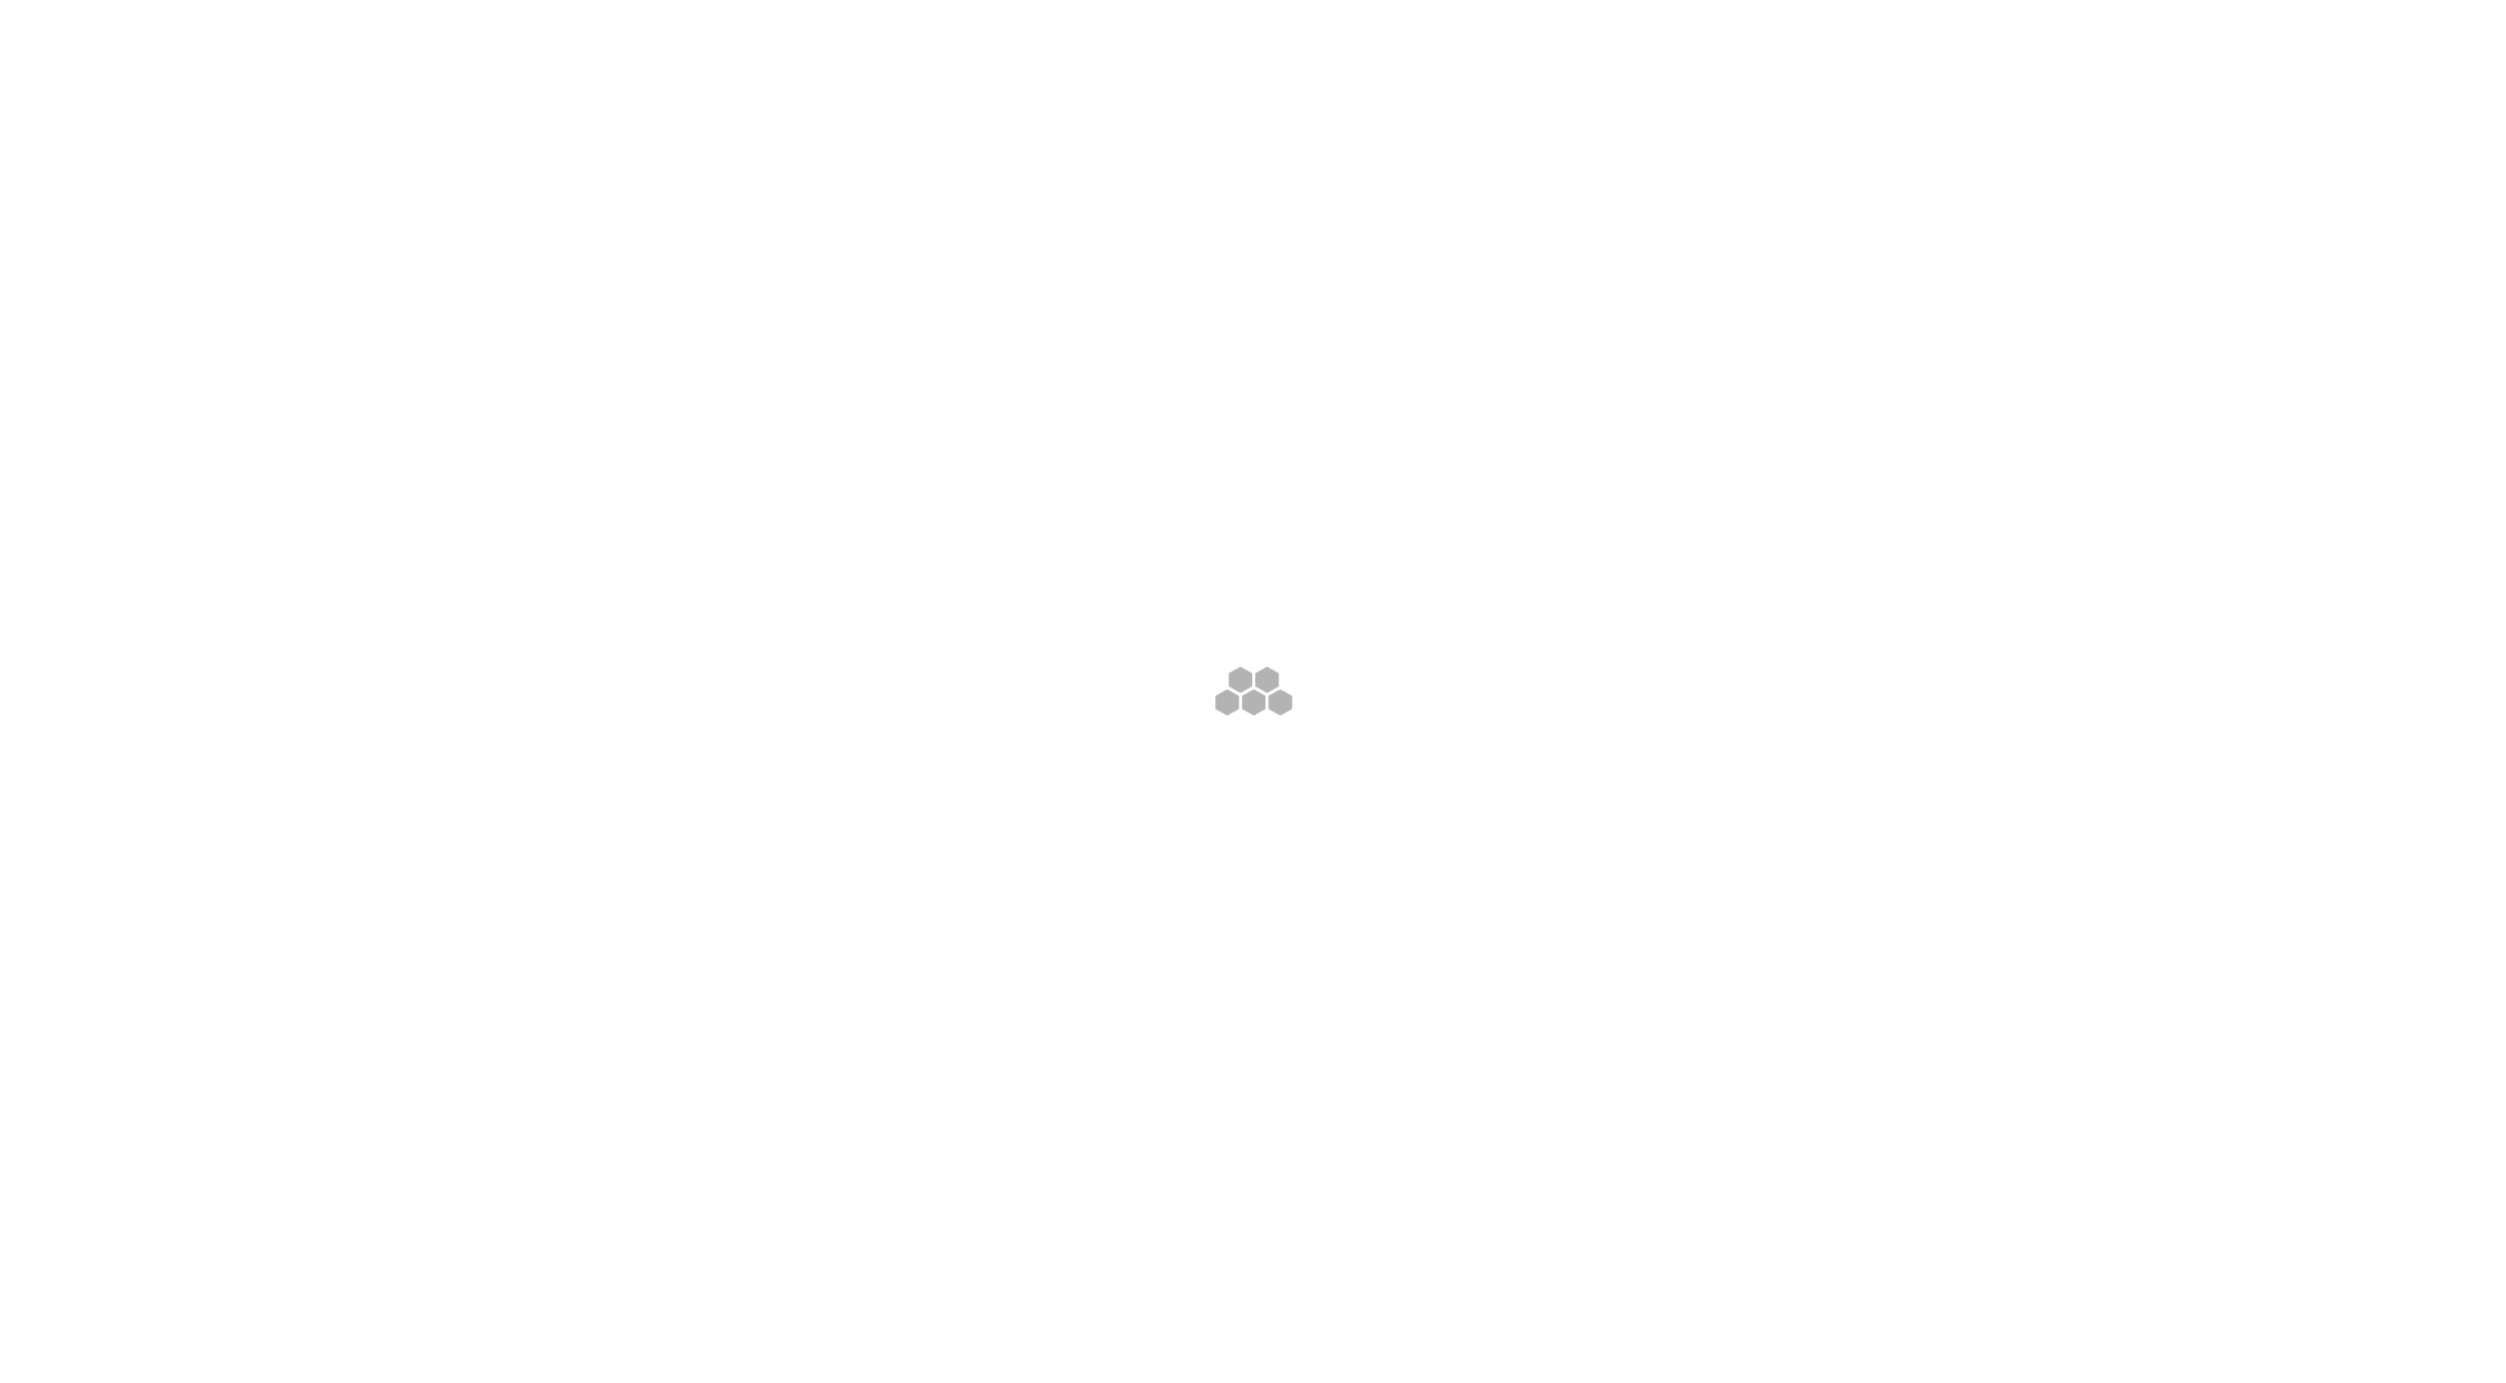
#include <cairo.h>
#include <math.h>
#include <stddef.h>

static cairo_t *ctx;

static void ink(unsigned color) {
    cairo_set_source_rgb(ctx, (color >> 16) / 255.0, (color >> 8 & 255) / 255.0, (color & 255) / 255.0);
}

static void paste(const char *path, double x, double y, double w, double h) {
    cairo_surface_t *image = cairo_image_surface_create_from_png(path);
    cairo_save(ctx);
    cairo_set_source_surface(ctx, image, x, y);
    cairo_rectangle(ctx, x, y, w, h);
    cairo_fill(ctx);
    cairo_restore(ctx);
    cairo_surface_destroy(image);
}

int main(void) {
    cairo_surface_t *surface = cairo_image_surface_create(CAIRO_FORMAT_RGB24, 2506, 1383);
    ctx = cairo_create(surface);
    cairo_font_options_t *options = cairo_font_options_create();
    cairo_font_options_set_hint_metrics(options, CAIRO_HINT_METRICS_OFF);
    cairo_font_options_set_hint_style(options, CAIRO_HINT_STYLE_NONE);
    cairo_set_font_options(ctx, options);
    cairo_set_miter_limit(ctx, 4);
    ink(0xffffff);
    cairo_paint(ctx);
    paste("pic1.png", 1215, 666, 78, 50);
    cairo_surface_write_to_png(surface, "screenshot.png");
    cairo_font_options_destroy(options);
    cairo_destroy(ctx);
    cairo_surface_destroy(surface);
    return 0;
}
